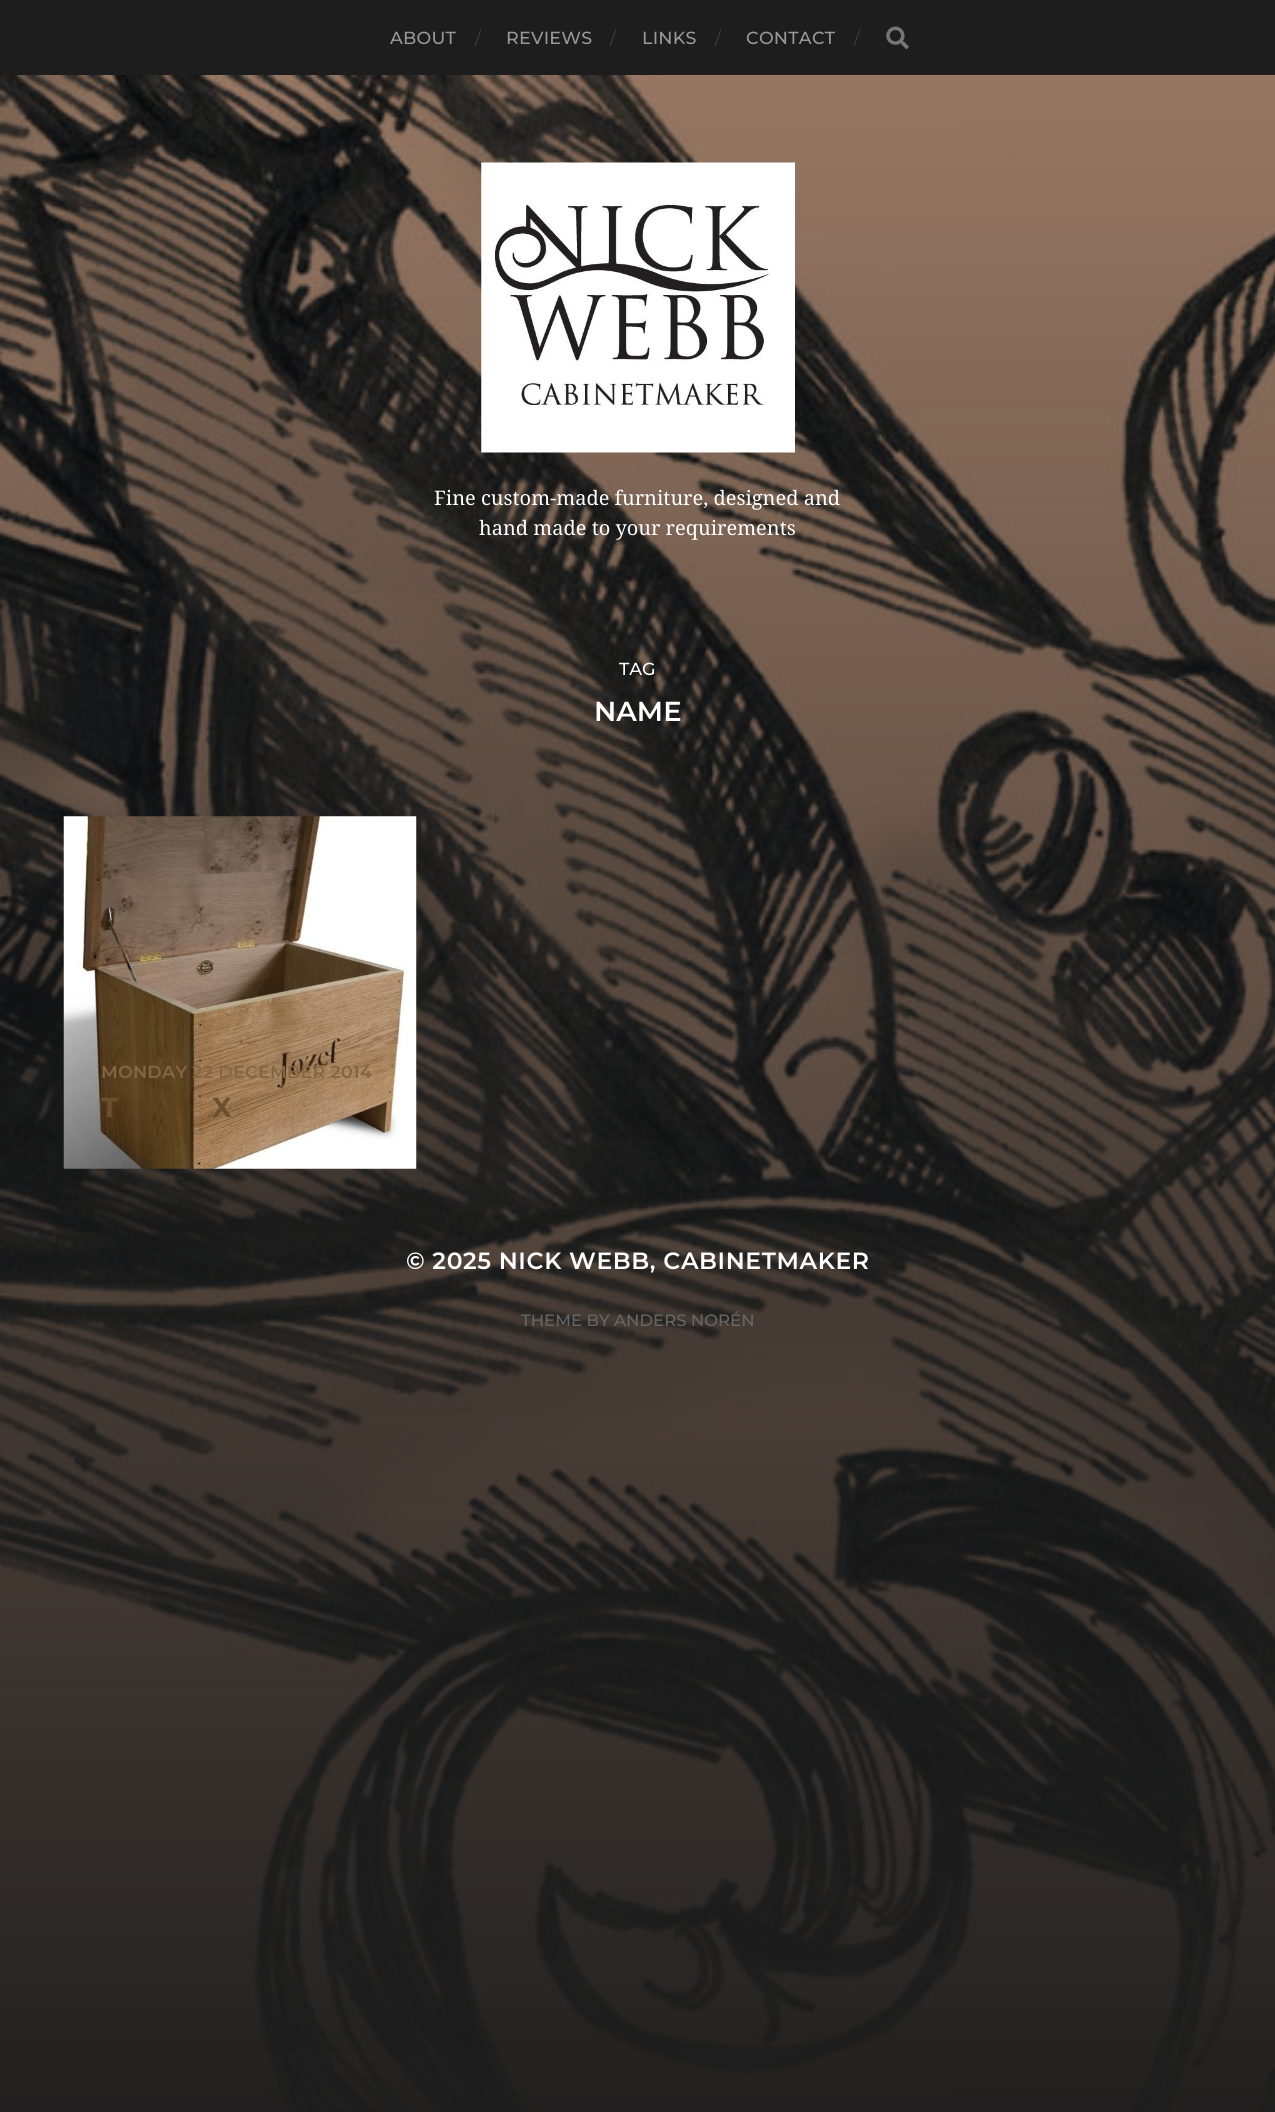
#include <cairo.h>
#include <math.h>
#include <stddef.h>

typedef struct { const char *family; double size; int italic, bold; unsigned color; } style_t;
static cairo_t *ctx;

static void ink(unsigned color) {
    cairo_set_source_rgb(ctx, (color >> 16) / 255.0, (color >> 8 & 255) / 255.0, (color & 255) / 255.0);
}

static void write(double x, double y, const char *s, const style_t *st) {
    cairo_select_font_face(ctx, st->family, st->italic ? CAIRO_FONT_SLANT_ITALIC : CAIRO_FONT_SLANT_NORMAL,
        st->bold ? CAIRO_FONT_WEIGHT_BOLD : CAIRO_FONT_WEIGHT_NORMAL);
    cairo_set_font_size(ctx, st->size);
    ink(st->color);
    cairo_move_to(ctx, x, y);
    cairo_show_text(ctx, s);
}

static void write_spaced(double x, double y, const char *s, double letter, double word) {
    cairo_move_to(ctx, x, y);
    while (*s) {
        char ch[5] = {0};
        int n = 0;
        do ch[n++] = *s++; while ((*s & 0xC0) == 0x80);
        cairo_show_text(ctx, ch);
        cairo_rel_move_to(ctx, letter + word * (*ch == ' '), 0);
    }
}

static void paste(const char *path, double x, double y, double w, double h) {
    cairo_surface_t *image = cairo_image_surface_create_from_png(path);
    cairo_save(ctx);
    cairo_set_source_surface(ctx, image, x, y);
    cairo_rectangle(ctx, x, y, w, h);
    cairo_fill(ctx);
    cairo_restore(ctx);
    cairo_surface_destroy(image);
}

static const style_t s1 = {"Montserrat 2 Thin", 17.5, 0, 0, 0x3d3d3d};
static const style_t s2 = {"Droid Serif", 20, 0, 0, 0xffffff};
static const style_t s3 = {"Montserrat Thin", 17.5, 0, 0, 0xffffff};
static const style_t s4 = {"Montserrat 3 Thin", 27.5, 0, 0, 0xffffff};
static const style_t s5 = {"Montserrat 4 Thin", 27.5, 0, 0, 0x6c502d};
static const style_t s6 = {"Montserrat Thin", 16.5, 0, 0, 0x666666};

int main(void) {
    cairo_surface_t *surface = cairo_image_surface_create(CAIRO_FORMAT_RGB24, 1275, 2112);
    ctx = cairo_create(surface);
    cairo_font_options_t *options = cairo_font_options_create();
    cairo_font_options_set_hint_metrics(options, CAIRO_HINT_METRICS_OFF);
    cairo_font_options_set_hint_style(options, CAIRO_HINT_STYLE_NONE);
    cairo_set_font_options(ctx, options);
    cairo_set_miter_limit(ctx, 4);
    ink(0x1d1d1d);
    cairo_paint(ctx);
    cairo_select_font_face(ctx, "Montserrat Thin", CAIRO_FONT_SLANT_NORMAL, CAIRO_FONT_WEIGHT_NORMAL);
    cairo_set_font_size(ctx, 17.5);
    ink(0x999999);
    write_spaced(390, 44, "ABOUT", 0.25, 0);
    write(475, 44, "/", &s1);
    cairo_select_font_face(ctx, "Montserrat Thin", CAIRO_FONT_SLANT_NORMAL, CAIRO_FONT_WEIGHT_NORMAL);
    ink(0x999999);
    write_spaced(506, 44, "REVIEWS", 0.25, 0);
    write(610, 44, "/", &s1);
    cairo_select_font_face(ctx, "Montserrat Thin", CAIRO_FONT_SLANT_NORMAL, CAIRO_FONT_WEIGHT_NORMAL);
    ink(0x999999);
    write_spaced(642, 44, "LINKS", 0.25, 0);
    write(715, 44, "/", &s1);
    cairo_select_font_face(ctx, "Montserrat Thin", CAIRO_FONT_SLANT_NORMAL, CAIRO_FONT_WEIGHT_NORMAL);
    ink(0x999999);
    write_spaced(746, 44, "CONTACT", 0.25, 0);
    write(854, 44, "/", &s1);
    paste("pic1.png", 886, 26, 23, 23);
    paste("pic2.png", 0, 75, 1275, 2037);
    paste("pic3.png", 481, 162, 314, 291);
    write(434, 505, "Fine custom-made furniture, designed and", &s2);
    write(479, 535, "hand made to your requirements", &s2);
    write(619, 675, "TAG", &s3);
    write(594, 721, "NAME", &s4);
    paste("pic4.png", 63, 816, 354, 353);
    cairo_set_font_size(ctx, 17.5);
    ink(0x856643);
    write_spaced(101, 1078, "MONDAY 22 DECEMBER 2014", 0.25, 0);
    write(101, 1117, "T", &s5);
    write(212, 1117, "X", &s5);
    cairo_select_font_face(ctx, "Montserrat 3 Thin", CAIRO_FONT_SLANT_NORMAL, CAIRO_FONT_WEIGHT_NORMAL);
    cairo_set_font_size(ctx, 23.5);
    ink(0xffffff);
    write_spaced(406, 1269, "© 2025 NICK WEBB, CABINETMAKER", 0.6, 0);
    write(521, 1326, "THEME BY ANDERS NORÉN", &s6);
    cairo_surface_write_to_png(surface, "screenshot.png");
    cairo_font_options_destroy(options);
    cairo_destroy(ctx);
    cairo_surface_destroy(surface);
    return 0;
}
